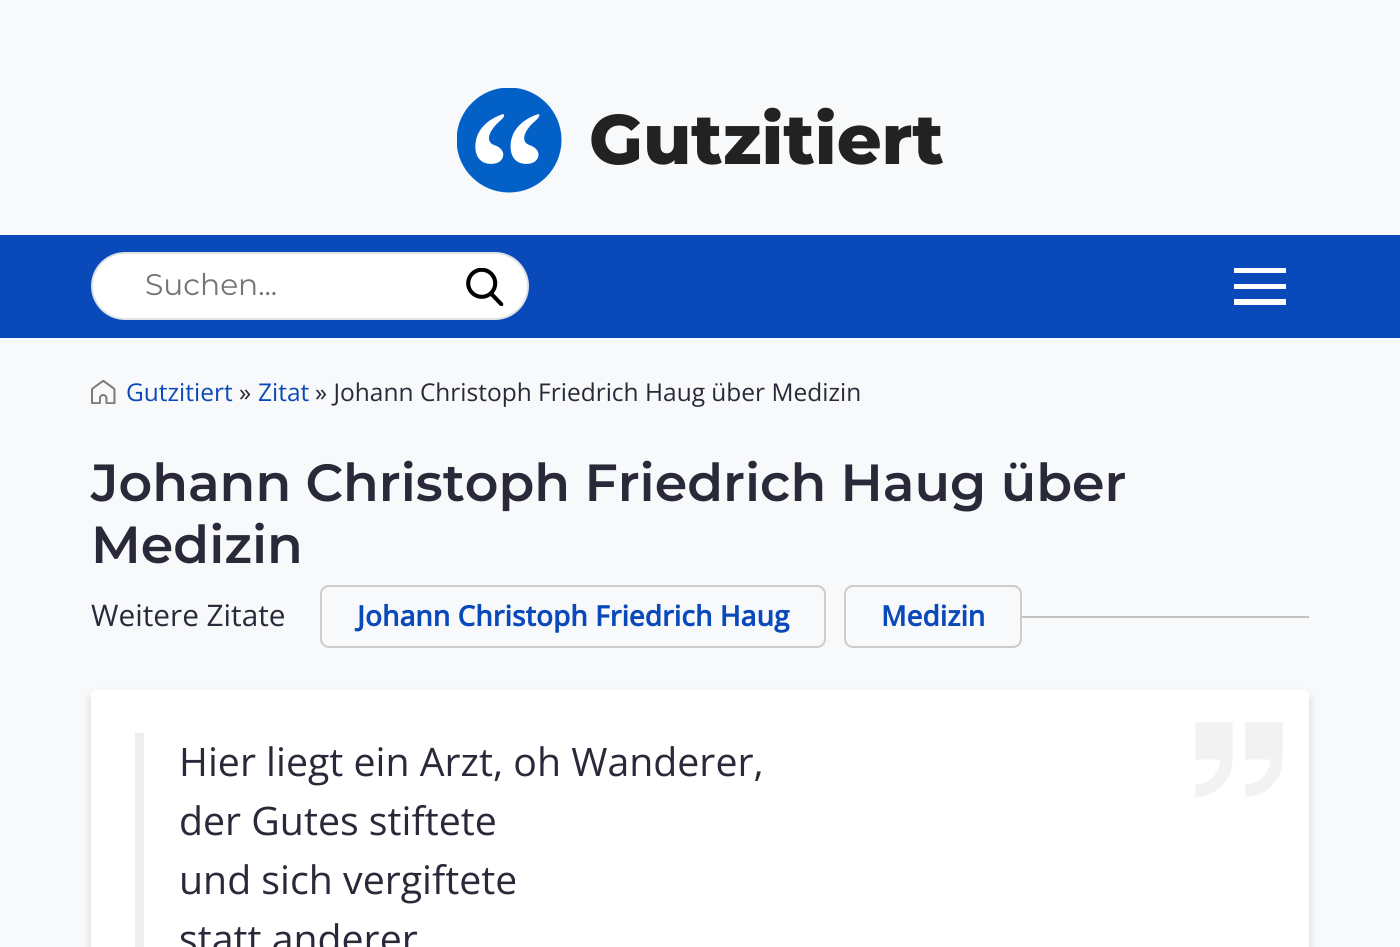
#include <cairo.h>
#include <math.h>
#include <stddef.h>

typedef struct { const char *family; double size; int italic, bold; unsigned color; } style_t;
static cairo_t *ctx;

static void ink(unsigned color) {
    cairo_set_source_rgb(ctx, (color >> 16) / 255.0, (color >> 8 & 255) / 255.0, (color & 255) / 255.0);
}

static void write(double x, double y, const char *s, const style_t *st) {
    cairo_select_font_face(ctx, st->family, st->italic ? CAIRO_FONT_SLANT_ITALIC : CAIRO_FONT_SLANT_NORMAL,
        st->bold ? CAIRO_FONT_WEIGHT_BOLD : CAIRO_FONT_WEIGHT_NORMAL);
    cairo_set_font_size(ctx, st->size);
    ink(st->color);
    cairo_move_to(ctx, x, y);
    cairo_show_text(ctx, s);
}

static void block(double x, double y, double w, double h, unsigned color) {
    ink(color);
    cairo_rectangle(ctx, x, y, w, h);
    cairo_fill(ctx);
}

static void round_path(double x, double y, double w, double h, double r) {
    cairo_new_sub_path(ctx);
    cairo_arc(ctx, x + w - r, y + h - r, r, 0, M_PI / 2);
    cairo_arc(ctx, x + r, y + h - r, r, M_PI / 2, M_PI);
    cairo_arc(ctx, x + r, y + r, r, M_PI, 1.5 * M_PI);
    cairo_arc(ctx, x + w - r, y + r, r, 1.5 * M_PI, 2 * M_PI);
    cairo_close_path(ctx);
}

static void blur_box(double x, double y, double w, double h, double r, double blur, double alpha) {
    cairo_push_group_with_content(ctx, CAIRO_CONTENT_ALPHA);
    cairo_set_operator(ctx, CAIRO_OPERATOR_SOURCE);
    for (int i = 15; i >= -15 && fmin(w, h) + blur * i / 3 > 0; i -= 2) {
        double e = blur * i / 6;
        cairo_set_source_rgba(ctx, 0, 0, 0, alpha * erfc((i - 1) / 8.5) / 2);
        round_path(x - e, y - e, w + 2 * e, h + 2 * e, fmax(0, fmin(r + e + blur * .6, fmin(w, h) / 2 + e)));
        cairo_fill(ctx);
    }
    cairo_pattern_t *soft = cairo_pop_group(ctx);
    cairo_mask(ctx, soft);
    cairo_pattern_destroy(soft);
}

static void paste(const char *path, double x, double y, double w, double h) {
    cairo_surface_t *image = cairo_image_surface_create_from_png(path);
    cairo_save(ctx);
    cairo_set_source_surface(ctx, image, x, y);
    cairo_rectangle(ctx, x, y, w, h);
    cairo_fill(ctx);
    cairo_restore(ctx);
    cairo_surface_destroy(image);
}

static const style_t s1 = {"Montserrat ExtraBold", 70, 0, 0, 0x222222};
static const style_t s2 = {"Montserrat", 29.75, 0, 0, 0x757575};
static const style_t s3 = {"Open Sans", 24.5, 0, 0, 0x0a49ba};
static const style_t s4 = {"Open Sans", 24.5, 0, 0, 0x29293a};
static const style_t s5 = {"Montserrat SemiBold", 52.2, 0, 0, 0x29293a};
static const style_t s6 = {"Open Sans", 29.75, 0, 0, 0x29293a};
static const style_t s7 = {"Open Sans", 28, 0, 1, 0x0a49ba};
static const style_t s8 = {"Open Sans", 39.25, 0, 0, 0x29293a};

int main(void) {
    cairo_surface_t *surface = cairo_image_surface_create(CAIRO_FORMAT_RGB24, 1400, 947);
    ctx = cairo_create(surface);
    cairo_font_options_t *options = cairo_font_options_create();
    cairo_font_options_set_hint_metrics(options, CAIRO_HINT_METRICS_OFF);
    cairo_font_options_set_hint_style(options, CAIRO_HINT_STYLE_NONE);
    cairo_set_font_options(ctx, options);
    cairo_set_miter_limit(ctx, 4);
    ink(0xf8f9fa);
    cairo_paint(ctx);
    paste("pic1.png", 457, 88, 105, 105);
    write(589, 164, "Gutzitiert", &s1);
    block(0, 235, 1400, 103, 0x0a49ba);
    ink(0xffffff);
    round_path(92, 253, 436, 66, 33);
    cairo_fill_preserve(ctx);
    ink(0xdee2e6);
    cairo_stroke(ctx);
    write(145, 295, "Suchen...", &s2);
    paste("pic2.png", 466, 268, 38, 38);
    block(1234, 268, 52, 5, 0xffffff);
    block(1234, 284, 52, 5, 0xffffff);
    block(1234, 299, 52, 6, 0xffffff);
    paste("pic3.png", 91, 380, 25, 24);
    write(126, 401, "Gutzitiert", &s3);
    write(239, 401, "»", &s4);
    write(258, 401, "Zitat", &s3);
    write(315, 401, "» Johann Christoph Friedrich Haug über Medizin", &s4);
    write(91, 501, "Johann Christoph Friedrich Haug über", &s5);
    write(91, 563, "Medizin", &s5);
    write(91, 626, "Weitere Zitate", &s6);
    round_path(321, 586, 504, 61, 8);
    ink(0xcccccc);
    cairo_stroke(ctx);
    write(357, 626, "Johann Christoph Friedrich Haug", &s7);
    round_path(845, 586, 176, 61, 8);
    ink(0xcccccc);
    cairo_stroke(ctx);
    write(881, 626, "Medizin", &s7);
    block(1022, 616, 287, 2, 0xc3c3c3);
    ink(0x000000);
    blur_box(91, 695, 1218, 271, 5, 4.5, 0.15);
    ink(0xffffff);
    round_path(91, 690, 1218, 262, 5);
    cairo_fill(ctx);
    block(135, 733, 9, 214, 0xeeeeee);
    write(179, 776, "Hier liegt ein Arzt, oh Wanderer,", &s8);
    write(179, 835, "der Gutes stiftete", &s8);
    write(179, 894, "und sich vergiftete", &s8);
    write(179, 953, "statt anderer", &s8);
    paste("pic4.png", 1195, 722, 88, 75);
    cairo_surface_write_to_png(surface, "screenshot.png");
    cairo_font_options_destroy(options);
    cairo_destroy(ctx);
    cairo_surface_destroy(surface);
    return 0;
}
